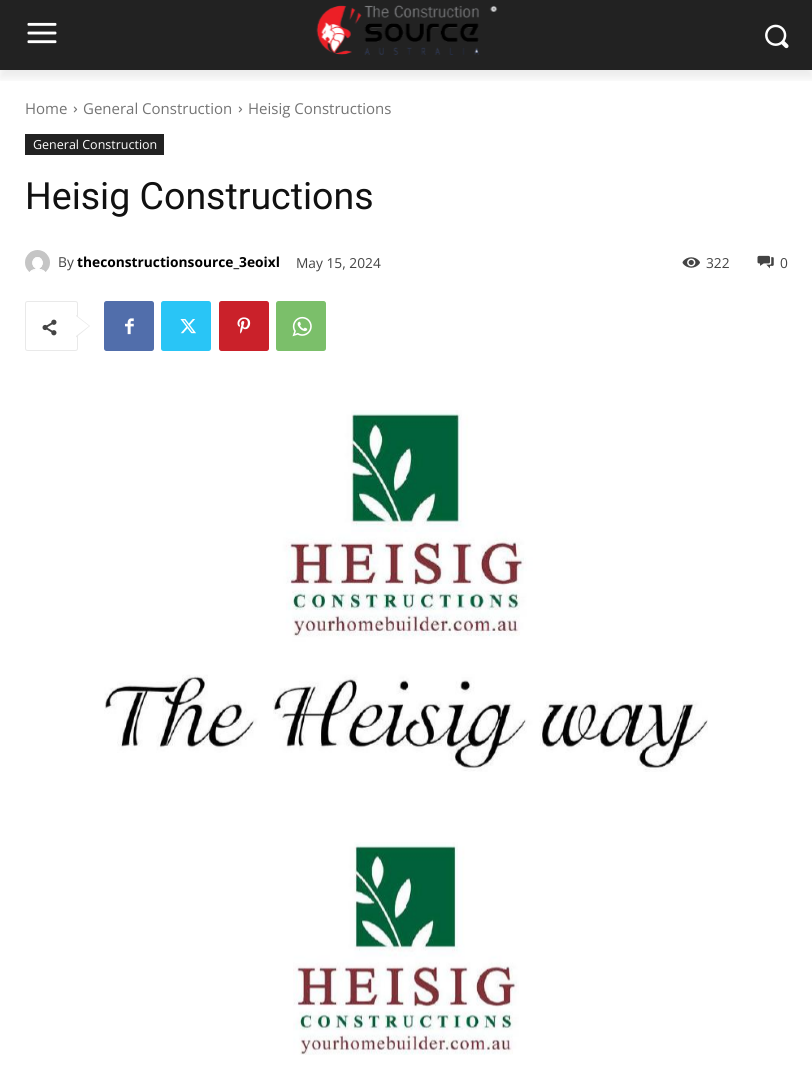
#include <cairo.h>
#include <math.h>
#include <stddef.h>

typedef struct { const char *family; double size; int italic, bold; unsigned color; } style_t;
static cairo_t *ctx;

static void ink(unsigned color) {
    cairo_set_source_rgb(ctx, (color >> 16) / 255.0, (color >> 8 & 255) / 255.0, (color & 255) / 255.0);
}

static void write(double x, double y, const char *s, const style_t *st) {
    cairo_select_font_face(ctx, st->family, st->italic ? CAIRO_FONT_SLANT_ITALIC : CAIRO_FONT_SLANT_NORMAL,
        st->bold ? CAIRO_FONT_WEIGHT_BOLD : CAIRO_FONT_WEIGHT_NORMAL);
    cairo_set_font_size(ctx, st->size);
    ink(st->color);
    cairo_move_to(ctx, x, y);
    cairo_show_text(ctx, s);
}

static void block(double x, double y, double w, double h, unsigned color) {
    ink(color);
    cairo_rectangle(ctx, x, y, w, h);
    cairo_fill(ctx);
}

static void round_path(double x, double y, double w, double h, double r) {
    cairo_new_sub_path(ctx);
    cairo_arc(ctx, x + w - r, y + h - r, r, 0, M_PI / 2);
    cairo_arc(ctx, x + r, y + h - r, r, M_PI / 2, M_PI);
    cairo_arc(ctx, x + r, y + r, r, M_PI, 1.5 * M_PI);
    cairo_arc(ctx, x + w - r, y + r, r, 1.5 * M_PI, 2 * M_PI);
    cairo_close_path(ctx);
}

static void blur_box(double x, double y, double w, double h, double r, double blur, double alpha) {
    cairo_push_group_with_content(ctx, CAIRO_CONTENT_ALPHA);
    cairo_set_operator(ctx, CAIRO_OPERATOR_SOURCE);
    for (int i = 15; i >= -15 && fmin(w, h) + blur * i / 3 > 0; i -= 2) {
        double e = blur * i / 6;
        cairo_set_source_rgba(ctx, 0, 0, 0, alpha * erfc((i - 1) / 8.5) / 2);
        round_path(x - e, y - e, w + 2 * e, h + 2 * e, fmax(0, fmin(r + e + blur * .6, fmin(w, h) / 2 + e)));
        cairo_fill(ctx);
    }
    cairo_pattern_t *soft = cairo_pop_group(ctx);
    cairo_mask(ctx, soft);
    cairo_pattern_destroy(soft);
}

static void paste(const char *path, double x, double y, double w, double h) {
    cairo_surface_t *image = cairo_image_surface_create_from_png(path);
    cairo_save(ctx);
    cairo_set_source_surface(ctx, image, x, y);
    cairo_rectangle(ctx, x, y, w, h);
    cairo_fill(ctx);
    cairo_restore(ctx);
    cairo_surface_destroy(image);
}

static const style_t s1 = {"Open Sans", 15, 0, 0, 0x747474};
static const style_t s2 = {"Open Sans", 12.5, 0, 0, 0xffffff};
static const style_t s3 = {"Roboto", 37.5, 0, 0, 0x111111};
static const style_t s4 = {"Open Sans", 13.75, 0, 0, 0x444444};
static const style_t s5 = {"Open Sans", 13.75, 0, 1, 0x000000};

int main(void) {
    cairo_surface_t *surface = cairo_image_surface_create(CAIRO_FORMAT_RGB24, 812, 1073);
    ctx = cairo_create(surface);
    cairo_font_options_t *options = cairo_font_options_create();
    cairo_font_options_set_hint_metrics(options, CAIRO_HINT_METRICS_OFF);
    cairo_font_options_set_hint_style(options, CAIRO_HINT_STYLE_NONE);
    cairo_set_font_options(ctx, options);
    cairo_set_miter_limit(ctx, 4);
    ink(0xffffff);
    cairo_paint(ctx);
    block(0, 0, 812, 70, 0x222222);
    paste("pic1.png", 27, 22, 30, 22);
    paste("pic2.png", 316, 5, 182, 50);
    paste("pic3.png", 765, 24, 24, 25);
    cairo_save(ctx);
    cairo_rectangle(ctx, 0, 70, 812, 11);
    cairo_clip(ctx);
    ink(0x000000);
    blur_box(0, 8, 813, 70, 0, 5, 0.08);
    cairo_restore(ctx);
    write(25, 114, "Home", &s1);
    paste("pic4.png", 73, 106, 5, 7);
    write(83, 114, "General Construction", &s1);
    paste("pic4.png", 238, 106, 5, 7);
    write(248, 114, "Heisig Constructions", &s1);
    block(25, 134, 139, 21, 0x222222);
    write(33, 149, "General Construction", &s2);
    write(25, 209, "Heisig Constructions", &s3);
    paste("pic5.png", 25, 250, 25, 22);
    write(58, 267, "By", &s4);
    write(77, 267, "theconstructionsource_3eoixl", &s5);
    write(296, 268, "May 15, 2024", &s4);
    paste("pic6.png", 682, 257, 18, 11);
    write(706, 268, "322", &s4);
    paste("pic7.png", 757, 255, 17, 14);
    write(780, 268, "0", &s4);
    round_path(25.5, 301.5, 52, 49, 2);
    ink(0xe9e9e9);
    cairo_set_line_width(ctx, 1);
    cairo_stroke(ctx);
    cairo_new_path(ctx);
    cairo_move_to(ctx, 76, 337.5);
    cairo_line_to(ctx, 76, 315);
    cairo_line_to(ctx, 90, 326);
    cairo_close_path(ctx);
    cairo_fill(ctx);
    paste("pic8.png", 42, 319, 15, 17);
    ink(0xffffff);
    cairo_new_path(ctx);
    cairo_move_to(ctx, 76, 336);
    cairo_line_to(ctx, 76, 316);
    cairo_line_to(ctx, 89, 326);
    cairo_close_path(ctx);
    cairo_fill(ctx);
    ink(0x516eab);
    round_path(104, 301, 50, 50, 2.5);
    cairo_fill(ctx);
    paste("pic9.png", 125, 318, 9, 17);
    ink(0x29c5f6);
    round_path(161, 301, 50, 50, 2.5);
    cairo_fill(ctx);
    paste("pic10.png", 180, 319, 16, 15);
    ink(0xca212a);
    round_path(219, 301, 50, 50, 2.5);
    cairo_fill(ctx);
    paste("pic11.png", 237, 317, 14, 17);
    ink(0x7bbf6a);
    round_path(276, 301, 50, 50, 2.5);
    cairo_fill(ctx);
    paste("pic12.png", 292, 316, 20, 21);
    paste("pic13.png", 104, 410, 604, 362);
    paste("pic14.png", 293, 842, 226, 213);
    cairo_surface_write_to_png(surface, "screenshot.png");
    cairo_font_options_destroy(options);
    cairo_destroy(ctx);
    cairo_surface_destroy(surface);
    return 0;
}
